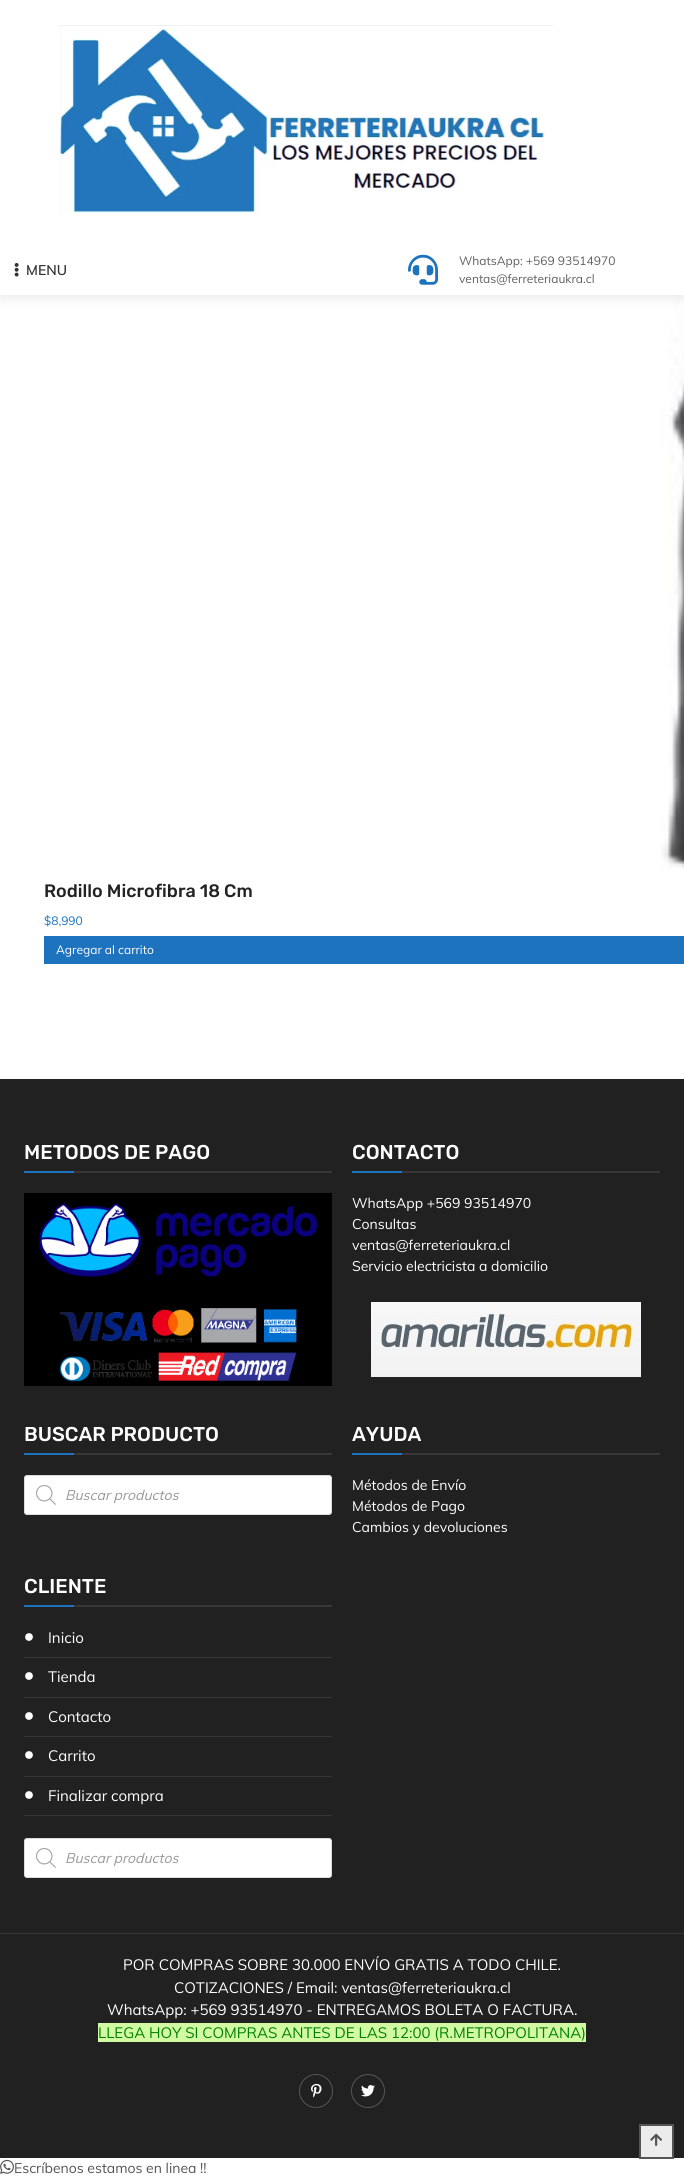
#include <cairo.h>
#include <math.h>
#include <stddef.h>

typedef struct { const char *family; double size; int italic, bold; unsigned color; } style_t;
static cairo_t *ctx;

static void ink(unsigned color) {
    cairo_set_source_rgb(ctx, (color >> 16) / 255.0, (color >> 8 & 255) / 255.0, (color & 255) / 255.0);
}

static void write(double x, double y, const char *s, const style_t *st) {
    cairo_select_font_face(ctx, st->family, st->italic ? CAIRO_FONT_SLANT_ITALIC : CAIRO_FONT_SLANT_NORMAL,
        st->bold ? CAIRO_FONT_WEIGHT_BOLD : CAIRO_FONT_WEIGHT_NORMAL);
    cairo_set_font_size(ctx, st->size);
    ink(st->color);
    cairo_move_to(ctx, x, y);
    cairo_show_text(ctx, s);
}

static void block(double x, double y, double w, double h, unsigned color) {
    ink(color);
    cairo_rectangle(ctx, x, y, w, h);
    cairo_fill(ctx);
}

static void round_path(double x, double y, double w, double h, double r) {
    cairo_new_sub_path(ctx);
    cairo_arc(ctx, x + w - r, y + h - r, r, 0, M_PI / 2);
    cairo_arc(ctx, x + r, y + h - r, r, M_PI / 2, M_PI);
    cairo_arc(ctx, x + r, y + r, r, M_PI, 1.5 * M_PI);
    cairo_arc(ctx, x + w - r, y + r, r, 1.5 * M_PI, 2 * M_PI);
    cairo_close_path(ctx);
}

static void blur_box(double x, double y, double w, double h, double r, double blur, double alpha) {
    cairo_push_group_with_content(ctx, CAIRO_CONTENT_ALPHA);
    cairo_set_operator(ctx, CAIRO_OPERATOR_SOURCE);
    for (int i = 15; i >= -15 && fmin(w, h) + blur * i / 3 > 0; i -= 2) {
        double e = blur * i / 6;
        cairo_set_source_rgba(ctx, 0, 0, 0, alpha * erfc((i - 1) / 8.5) / 2);
        round_path(x - e, y - e, w + 2 * e, h + 2 * e, fmax(0, fmin(r + e + blur * .6, fmin(w, h) / 2 + e)));
        cairo_fill(ctx);
    }
    cairo_pattern_t *soft = cairo_pop_group(ctx);
    cairo_mask(ctx, soft);
    cairo_pattern_destroy(soft);
}

static void paste(const char *path, double x, double y, double w, double h) {
    cairo_surface_t *image = cairo_image_surface_create_from_png(path);
    cairo_save(ctx);
    cairo_set_source_surface(ctx, image, x, y);
    cairo_rectangle(ctx, x, y, w, h);
    cairo_fill(ctx);
    cairo_restore(ctx);
    cairo_surface_destroy(image);
}

static const style_t s1 = {"Muli SemiBold", 14, 0, 0, 0x333333};
static const style_t s2 = {"Muli", 12, 0, 0, 0x606060};
static const style_t s3 = {"Rubik Medium", 18, 0, 0, 0x222222};
static const style_t s4 = {"Muli", 12, 0, 0, 0x1e73be};
static const style_t s5 = {"Muli", 12, 0, 0, 0xffffff};
static const style_t s6 = {"Rubik Medium", 20, 0, 0, 0xffffff};
static const style_t s7 = {"Muli", 14, 0, 0, 0xffffff};
static const style_t s8 = {"Muli", 14, 1, 0, 0x999999};
static const style_t s9 = {"Muli", 15, 0, 0, 0xffffff};
static const style_t s10 = {"Muli", 15, 0, 0, 0x008000};
static const style_t s11 = {"Muli", 14, 0, 0, 0x555555};

int main(void) {
    cairo_surface_t *surface = cairo_image_surface_create(CAIRO_FORMAT_RGB24, 684, 2179);
    ctx = cairo_create(surface);
    cairo_font_options_t *options = cairo_font_options_create();
    cairo_font_options_set_hint_metrics(options, CAIRO_HINT_METRICS_OFF);
    cairo_font_options_set_hint_style(options, CAIRO_HINT_STYLE_NONE);
    cairo_set_font_options(ctx, options);
    cairo_set_miter_limit(ctx, 4);
    ink(0xffffff);
    cairo_paint(ctx);
    paste("pic4.png", 660, 295, 24, 574);
    ink(0x000000);
    blur_box(0, 2, 684, 295, 0, 6, 0.1);
    block(0, 0, 684, 295, 0xffffff);
    paste("pic1.png", 60, 25, 494, 189);
    paste("pic2.png", 14, 263, 5, 14);
    write(26, 275, "MENU", &s1);
    paste("pic3.png", 408, 254, 30, 31);
    write(459, 265, "WhatsApp: +569 93514970", &s2);
    write(459, 283, "ventas@ferreteriaukra.cl", &s2);
    write(44, 897, "Rodillo Microfibra 18 Cm", &s3);
    write(44, 925, "$8,990", &s4);
    block(44, 936, 640, 28, 0x1e73be);
    write(56, 954, "Agregar al carrito", &s5);
    block(0, 1079, 684, 1079, 0x212121);
    block(74, 1171, 258, 2, 0x373737);
    write(24, 1159, "METODOS DE PAGO", &s6);
    block(24, 1171, 50, 2, 0x1e73be);
    paste("pic5.png", 24, 1193, 308, 193);
    block(402, 1171, 258, 2, 0x373737);
    write(352, 1159, "CONTACTO", &s6);
    block(352, 1171, 50, 2, 0x1e73be);
    write(352, 1208, "WhatsApp +569 93514970", &s7);
    write(352, 1229, "Consultas", &s7);
    write(352, 1250, "ventas@ferreteriaukra.cl", &s7);
    write(352, 1271, "Servicio electricista a domicilio", &s7);
    paste("pic6.png", 371, 1302, 270, 75);
    block(74, 1453, 258, 2, 0x373737);
    write(24, 1441, "BUSCAR PRODUCTO", &s6);
    block(24, 1453, 50, 2, 0x1e73be);
    ink(0xffffff);
    round_path(24.5, 1475.5, 307, 39, 2.5);
    cairo_fill_preserve(ctx);
    ink(0xdddddd);
    cairo_set_line_width(ctx, 1);
    cairo_stroke(ctx);
    paste("pic7.png", 36, 1485, 20, 20);
    write(65, 1500, "Buscar productos", &s8);
    block(402, 1453, 258, 2, 0x373737);
    write(352, 1441, "AYUDA", &s6);
    block(352, 1453, 50, 2, 0x1e73be);
    write(352, 1490, "Métodos de Envío", &s7);
    write(352, 1511, "Métodos de Pago", &s7);
    write(352, 1532, "Cambios y devoluciones", &s7);
    block(74, 1605, 258, 2, 0x373737);
    write(24, 1593, "CLIENTE", &s6);
    block(24, 1605, 50, 2, 0x1e73be);
    block(24, 1657, 308, 1, 0x373737);
    paste("pic8.png", 25, 1633, 8, 8);
    write(48, 1643, "Inicio", &s9);
    block(24, 1697, 308, 1, 0x373737);
    paste("pic8.png", 25, 1672, 8, 8);
    write(48, 1682, "Tienda", &s9);
    block(24, 1736, 308, 1, 0x373737);
    paste("pic8.png", 25, 1712, 8, 8);
    write(48, 1722, "Contacto", &s9);
    block(24, 1776, 308, 1, 0x373737);
    paste("pic8.png", 25, 1751, 8, 8);
    write(48, 1761, "Carrito", &s9);
    block(24, 1815, 308, 1, 0x373737);
    paste("pic8.png", 25, 1791, 8, 8);
    write(48, 1801, "Finalizar compra", &s9);
    round_path(24.5, 1838.5, 307, 39, 2.5);
    cairo_fill_preserve(ctx);
    ink(0xdddddd);
    cairo_stroke(ctx);
    paste("pic7.png", 36, 1848, 20, 20);
    write(65, 1863, "Buscar productos", &s8);
    block(0, 1933, 684, 1, 0x373737);
    write(123, 1970, "POR COMPRAS SOBRE 30.000 ENVÍO GRATIS A TODO CHILE.", &s9);
    write(174, 1993, "COTIZACIONES / Email: ventas@ferreteriaukra.cl", &s9);
    write(107, 2015, "WhatsApp: +569 93514970 - ENTREGAMOS BOLETA O FACTURA.", &s9);
    block(98, 2023, 488, 19, 0xd2faa2);
    write(98, 2038, "LLEGA HOY SI COMPRAS ANTES DE LAS 12:00 (R.METROPOLITANA)", &s10);
    cairo_new_path(ctx);
    cairo_arc(ctx, 316, 2091, 16.5, 0, 2 * M_PI);
    ink(0x555555);
    cairo_stroke(ctx);
    paste("pic9.png", 311, 2083, 11, 15);
    cairo_arc(ctx, 368, 2091, 16.5, 0, 2 * M_PI);
    cairo_stroke(ctx);
    paste("pic10.png", 361, 2085, 14, 12);
    ink(0xececec);
    cairo_rectangle(ctx, 640, 2125, 33, 33);
    cairo_fill_preserve(ctx);
    ink(0x555555);
    cairo_set_line_width(ctx, 2);
    cairo_stroke(ctx);
    paste("pic11.png", 650, 2133, 12, 13);
    paste("pic12.png", 0, 2159, 14, 15);
    write(14, 2173, "Escríbenos estamos en linea !!", &s11);
    cairo_surface_write_to_png(surface, "screenshot.png");
    cairo_font_options_destroy(options);
    cairo_destroy(ctx);
    cairo_surface_destroy(surface);
    return 0;
}
